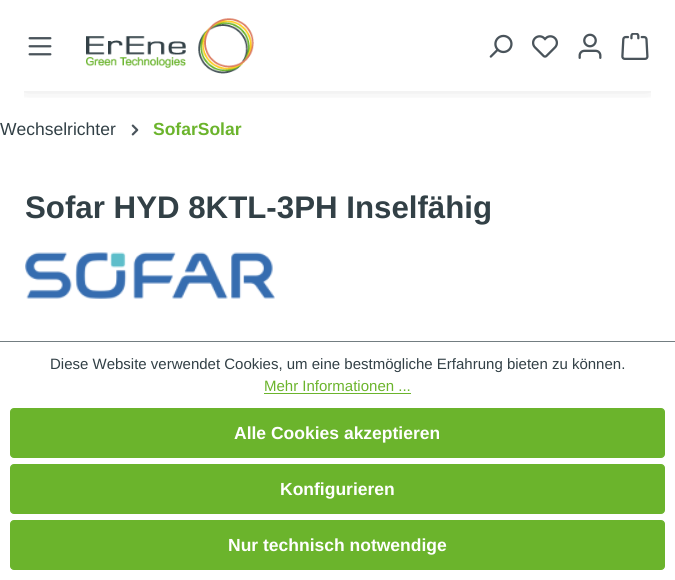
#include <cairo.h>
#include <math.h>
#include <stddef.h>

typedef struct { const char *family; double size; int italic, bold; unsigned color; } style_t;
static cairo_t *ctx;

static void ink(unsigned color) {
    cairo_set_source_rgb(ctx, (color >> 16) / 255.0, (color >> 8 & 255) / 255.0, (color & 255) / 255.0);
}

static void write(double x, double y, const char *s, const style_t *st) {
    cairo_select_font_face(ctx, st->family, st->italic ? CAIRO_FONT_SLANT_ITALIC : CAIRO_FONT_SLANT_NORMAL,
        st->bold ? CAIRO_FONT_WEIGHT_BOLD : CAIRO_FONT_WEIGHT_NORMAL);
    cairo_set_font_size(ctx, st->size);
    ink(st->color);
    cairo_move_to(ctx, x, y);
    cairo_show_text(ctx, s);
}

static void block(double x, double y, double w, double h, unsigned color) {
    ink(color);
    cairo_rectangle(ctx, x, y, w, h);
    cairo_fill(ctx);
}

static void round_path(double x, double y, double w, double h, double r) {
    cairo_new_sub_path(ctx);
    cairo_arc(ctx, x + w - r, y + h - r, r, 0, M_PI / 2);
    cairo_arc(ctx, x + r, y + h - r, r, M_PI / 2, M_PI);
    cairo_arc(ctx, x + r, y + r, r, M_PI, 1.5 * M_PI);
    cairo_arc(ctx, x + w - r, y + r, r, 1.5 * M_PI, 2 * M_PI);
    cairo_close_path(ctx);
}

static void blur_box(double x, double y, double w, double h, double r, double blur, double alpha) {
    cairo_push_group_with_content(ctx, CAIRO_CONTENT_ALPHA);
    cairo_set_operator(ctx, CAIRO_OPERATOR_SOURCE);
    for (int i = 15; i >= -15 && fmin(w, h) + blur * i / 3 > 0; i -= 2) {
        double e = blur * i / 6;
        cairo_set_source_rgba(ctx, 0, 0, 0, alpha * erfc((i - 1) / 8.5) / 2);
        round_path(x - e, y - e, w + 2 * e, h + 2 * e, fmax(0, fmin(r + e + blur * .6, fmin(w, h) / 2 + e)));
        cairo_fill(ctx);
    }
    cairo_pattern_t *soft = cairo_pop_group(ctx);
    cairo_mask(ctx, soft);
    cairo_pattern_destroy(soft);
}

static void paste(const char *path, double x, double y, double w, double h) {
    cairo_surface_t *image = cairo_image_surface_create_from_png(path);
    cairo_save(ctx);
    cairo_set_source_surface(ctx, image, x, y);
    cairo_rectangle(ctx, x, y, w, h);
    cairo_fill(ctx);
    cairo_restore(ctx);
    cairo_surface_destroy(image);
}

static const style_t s1 = {"Liberation Sans", 17.5, 0, 0, 0x324046};
static const style_t s2 = {"Liberation Sans", 17.5, 0, 1, 0x6bb42c};
static const style_t s3 = {"Liberation Sans", 31.25, 0, 1, 0x324046};
static const style_t s4 = {"Liberation Sans", 15, 0, 0, 0x324046};
static const style_t s5 = {"Liberation Sans", 15, 0, 0, 0x6bb42c};
static const style_t s6 = {"Liberation Sans", 17.5, 0, 1, 0xffffff};

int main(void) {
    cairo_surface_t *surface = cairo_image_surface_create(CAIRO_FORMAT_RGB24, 675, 580);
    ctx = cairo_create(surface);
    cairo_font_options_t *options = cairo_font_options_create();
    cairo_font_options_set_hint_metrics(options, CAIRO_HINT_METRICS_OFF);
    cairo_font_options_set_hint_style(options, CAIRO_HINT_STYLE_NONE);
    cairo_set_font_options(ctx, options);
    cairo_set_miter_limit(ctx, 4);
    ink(0xffffff);
    cairo_paint(ctx);
    cairo_save(ctx);
    cairo_rectangle(ctx, 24, 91, 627, 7);
    cairo_clip(ctx);
    ink(0x000000);
    blur_box(25, 40, 625, 41, 0, 11, 0.3);
    cairo_restore(ctx);
    paste("pic1.png", 86, 18, 168, 56);
    paste("pic2.png", 28, 37, 24, 19);
    paste("pic3.png", 489, 34, 24, 24);
    paste("pic4.png", 532, 35, 26, 23);
    paste("pic5.png", 578, 33, 24, 26);
    paste("pic6.png", 621, 33, 28, 27);
    write(0, 135, "Wechselrichter", &s1);
    paste("pic7.png", 131, 124, 8, 12);
    write(153, 135, "SofarSolar", &s2);
    write(25, 218, "Sofar HYD 8KTL-3PH Inselfähig", &s3);
    paste("pic8.png", 25, 252, 250, 47);
    block(0, 341, 675, 1, 0x737d81);
    write(50, 369, "Diese Website verwendet Cookies, um eine bestmögliche Erfahrung bieten zu können.", &s4);
    write(264, 391, "Mehr Informationen ...", &s5);
    block(264, 393, 147, 1, 0x6bb42c);
    round_path(10.5, 408.5, 654, 49, 3.5);
    cairo_fill_preserve(ctx);
    cairo_set_line_width(ctx, 1);
    cairo_stroke(ctx);
    write(234, 439, "Alle Cookies akzeptieren", &s6);
    ink(0x6bb42c);
    round_path(10.5, 464.5, 654, 49, 3.5);
    cairo_fill_preserve(ctx);
    cairo_stroke(ctx);
    write(280, 495, "Konfigurieren", &s6);
    ink(0x6bb42c);
    round_path(10.5, 520.5, 654, 49, 3.5);
    cairo_fill_preserve(ctx);
    cairo_stroke(ctx);
    write(228, 551, "Nur technisch notwendige", &s6);
    cairo_surface_write_to_png(surface, "screenshot.png");
    cairo_font_options_destroy(options);
    cairo_destroy(ctx);
    cairo_surface_destroy(surface);
    return 0;
}
